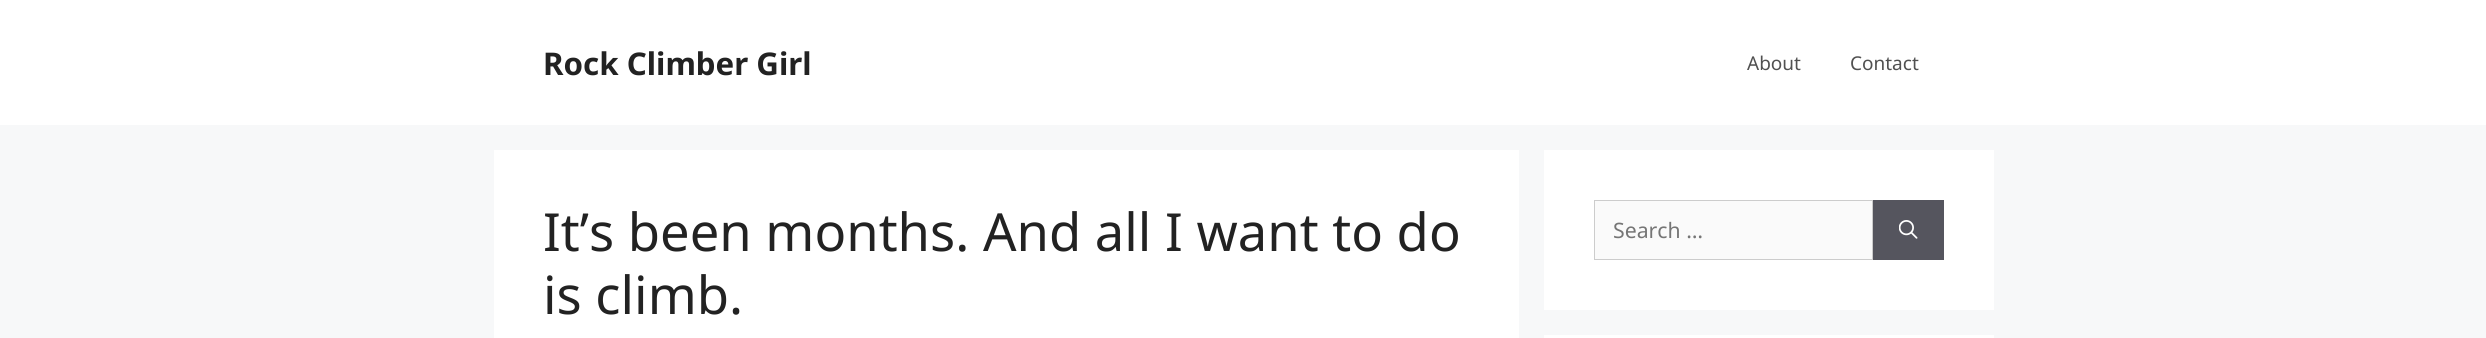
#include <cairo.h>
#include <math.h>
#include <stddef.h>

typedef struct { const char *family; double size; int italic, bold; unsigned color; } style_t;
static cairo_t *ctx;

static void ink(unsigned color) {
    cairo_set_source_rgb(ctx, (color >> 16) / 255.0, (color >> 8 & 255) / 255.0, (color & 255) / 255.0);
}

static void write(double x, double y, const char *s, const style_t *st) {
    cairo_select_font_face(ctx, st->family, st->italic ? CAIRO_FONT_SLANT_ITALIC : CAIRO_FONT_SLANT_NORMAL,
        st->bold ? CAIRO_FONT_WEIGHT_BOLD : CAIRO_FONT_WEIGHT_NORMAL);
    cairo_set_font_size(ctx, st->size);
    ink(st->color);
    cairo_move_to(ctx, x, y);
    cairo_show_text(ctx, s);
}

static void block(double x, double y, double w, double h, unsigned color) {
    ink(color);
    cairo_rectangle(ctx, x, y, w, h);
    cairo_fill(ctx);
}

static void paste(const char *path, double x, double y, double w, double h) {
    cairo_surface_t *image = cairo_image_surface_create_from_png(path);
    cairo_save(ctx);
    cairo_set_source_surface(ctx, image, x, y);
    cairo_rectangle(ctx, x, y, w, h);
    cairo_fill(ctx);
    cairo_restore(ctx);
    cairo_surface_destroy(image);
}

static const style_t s1 = {"Noto Sans", 31.25, 0, 1, 0x222222};
static const style_t s2 = {"Noto Sans", 19, 0, 0, 0x515151};
static const style_t s3 = {"Noto Sans", 52.5, 0, 0, 0x222222};
static const style_t s4 = {"Noto Sans", 21.25, 0, 0, 0x757575};

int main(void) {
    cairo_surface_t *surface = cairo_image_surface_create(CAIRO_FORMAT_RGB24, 2486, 338);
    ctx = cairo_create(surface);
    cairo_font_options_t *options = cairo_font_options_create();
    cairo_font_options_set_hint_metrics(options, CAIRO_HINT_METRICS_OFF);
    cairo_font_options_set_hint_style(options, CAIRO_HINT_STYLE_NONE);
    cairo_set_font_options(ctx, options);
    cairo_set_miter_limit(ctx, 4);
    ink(0xf7f8f9);
    cairo_paint(ctx);
    block(0, 0, 2486, 125, 0xffffff);
    write(543, 75, "Rock Climber Girl", &s1);
    write(1747, 70, "About", &s2);
    write(1850, 70, "Contact", &s2);
    block(494, 150, 1025, 188, 0xffffff);
    write(543, 251, "It’s been months. And all I want to do", &s3);
    write(543, 314, "is climb.", &s3);
    block(1544, 150, 450, 160, 0xffffff);
    ink(0xfafafa);
    cairo_rectangle(ctx, 1594.5, 200.5, 278, 59);
    cairo_fill_preserve(ctx);
    ink(0xcccccc);
    cairo_set_line_width(ctx, 1);
    cairo_stroke(ctx);
    write(1613, 238, "Search …", &s4);
    block(1873, 200, 71, 60, 0x55555e);
    paste("pic1.png", 1899, 220, 19, 19);
    block(1544, 335, 450, 3, 0xffffff);
    cairo_surface_write_to_png(surface, "screenshot.png");
    cairo_font_options_destroy(options);
    cairo_destroy(ctx);
    cairo_surface_destroy(surface);
    return 0;
}
